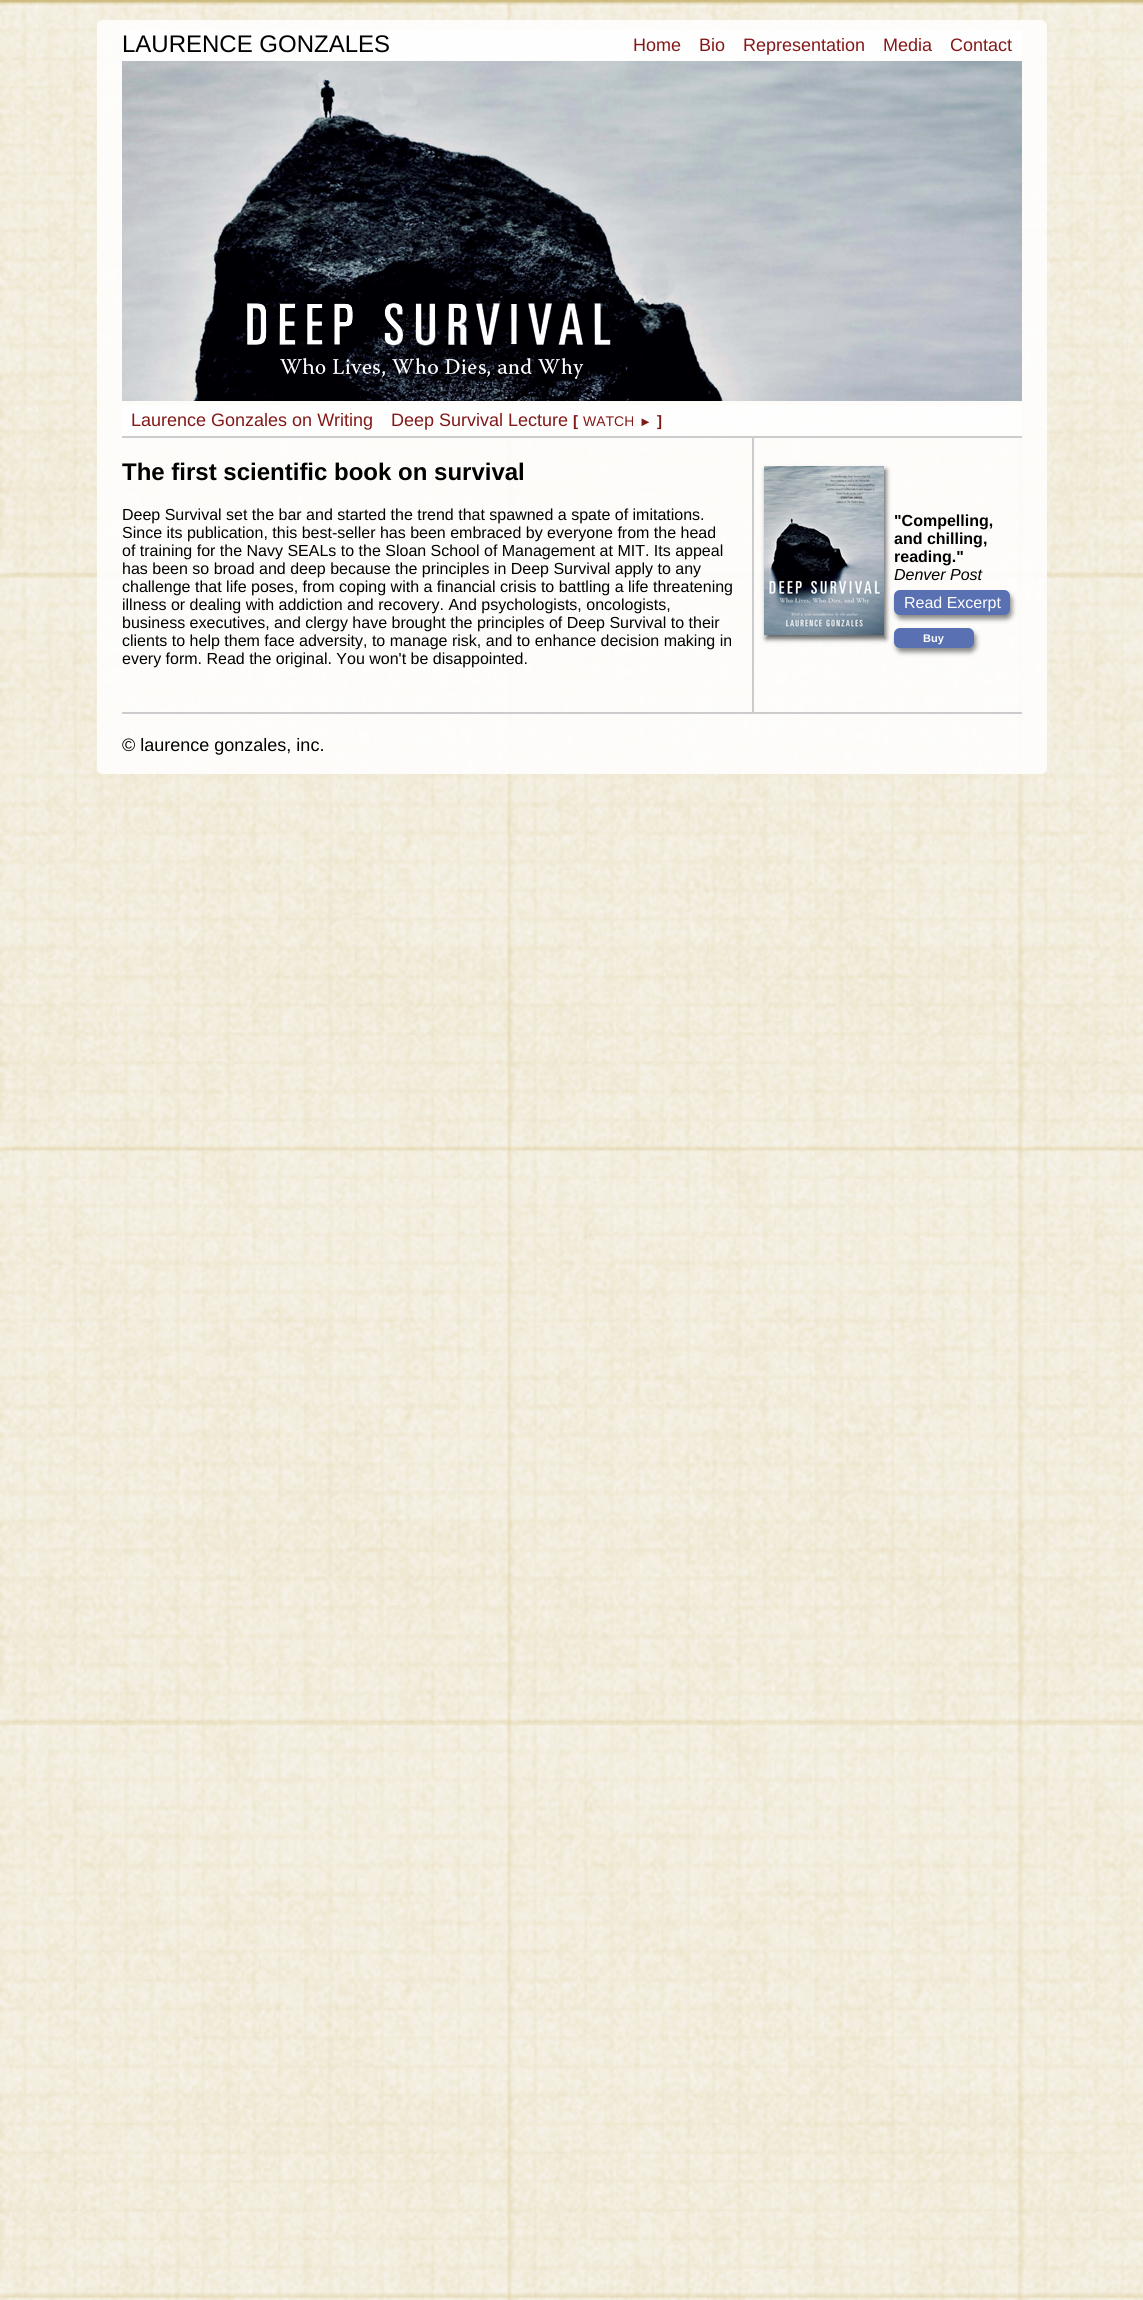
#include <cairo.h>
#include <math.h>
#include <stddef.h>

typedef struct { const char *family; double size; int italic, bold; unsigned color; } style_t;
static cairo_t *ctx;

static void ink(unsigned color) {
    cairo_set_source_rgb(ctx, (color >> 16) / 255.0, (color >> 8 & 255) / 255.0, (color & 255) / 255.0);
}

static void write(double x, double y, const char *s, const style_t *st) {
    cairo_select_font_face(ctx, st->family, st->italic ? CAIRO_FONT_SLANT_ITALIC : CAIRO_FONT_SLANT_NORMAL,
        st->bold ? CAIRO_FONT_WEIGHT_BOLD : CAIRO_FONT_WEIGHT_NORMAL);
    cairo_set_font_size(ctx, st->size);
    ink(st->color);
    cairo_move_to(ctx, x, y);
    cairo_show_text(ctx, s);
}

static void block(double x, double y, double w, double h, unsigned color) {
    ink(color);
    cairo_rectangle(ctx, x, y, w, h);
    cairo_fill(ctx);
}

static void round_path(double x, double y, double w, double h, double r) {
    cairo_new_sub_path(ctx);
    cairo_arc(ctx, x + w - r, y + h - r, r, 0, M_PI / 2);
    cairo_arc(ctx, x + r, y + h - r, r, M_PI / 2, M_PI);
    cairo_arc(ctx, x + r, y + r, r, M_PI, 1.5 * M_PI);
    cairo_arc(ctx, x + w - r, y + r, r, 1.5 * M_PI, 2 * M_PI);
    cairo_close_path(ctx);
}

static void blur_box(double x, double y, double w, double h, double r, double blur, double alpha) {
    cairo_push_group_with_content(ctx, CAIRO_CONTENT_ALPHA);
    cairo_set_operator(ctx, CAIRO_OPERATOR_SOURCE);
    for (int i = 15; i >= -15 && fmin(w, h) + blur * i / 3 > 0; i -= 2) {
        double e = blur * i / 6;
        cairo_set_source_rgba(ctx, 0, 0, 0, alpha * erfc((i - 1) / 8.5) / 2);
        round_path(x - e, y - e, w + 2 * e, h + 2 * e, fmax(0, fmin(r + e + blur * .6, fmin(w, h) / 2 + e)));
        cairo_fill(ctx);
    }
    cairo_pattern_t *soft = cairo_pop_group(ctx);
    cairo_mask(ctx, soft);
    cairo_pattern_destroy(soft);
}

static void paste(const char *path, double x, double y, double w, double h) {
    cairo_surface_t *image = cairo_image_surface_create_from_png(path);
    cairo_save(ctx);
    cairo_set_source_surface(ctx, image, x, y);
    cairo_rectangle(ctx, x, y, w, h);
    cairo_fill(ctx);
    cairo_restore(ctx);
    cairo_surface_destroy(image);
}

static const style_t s1 = {"Liberation Sans", 24, 0, 0, 0x000000};
static const style_t s2 = {"Liberation Sans", 18, 0, 0, 0x831818};
static const style_t s3 = {"Liberation Sans", 15, 0, 1, 0x831818};
static const style_t s4 = {"Liberation Sans", 14, 0, 0, 0x831818};
static const style_t s5 = {"Liberation Sans", 13, 0, 0, 0x831818};
static const style_t s6 = {"Liberation Sans", 24, 0, 1, 0x000000};
static const style_t s7 = {"Liberation Sans", 16, 0, 0, 0x000000};
static const style_t s8 = {"Liberation Sans", 16, 0, 1, 0x000000};
static const style_t s9 = {"Liberation Sans", 16, 1, 0, 0x000000};
static const style_t s10 = {"Liberation Sans", 16, 0, 0, 0xffffff};
static const style_t s11 = {"Liberation Sans", 11, 0, 1, 0xffffff};
static const style_t s12 = {"Liberation Sans", 18, 0, 0, 0x000000};

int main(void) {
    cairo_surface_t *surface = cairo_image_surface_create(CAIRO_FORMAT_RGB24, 1143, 2300);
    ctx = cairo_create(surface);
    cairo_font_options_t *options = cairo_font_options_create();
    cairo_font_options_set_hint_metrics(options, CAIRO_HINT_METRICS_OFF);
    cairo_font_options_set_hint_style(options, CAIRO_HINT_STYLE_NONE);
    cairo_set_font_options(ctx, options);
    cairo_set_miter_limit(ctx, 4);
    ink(0xffffff);
    cairo_paint(ctx);
    paste("pic1.png", 0, 0, 1143, 2300);
    cairo_set_source_rgba(ctx, 1, 1, 1, 0.85);
    round_path(97, 20, 950, 754, 6);
    cairo_fill(ctx);
    cairo_set_source_rgba(ctx, 1, 1, 1, 0.7);
    cairo_rectangle(ctx, 122, 30, 900, 31);
    cairo_fill(ctx);
    write(122, 52, "LAURENCE GONZALES", &s1);
    write(633, 51, "Home", &s2);
    write(699, 51, "Bio", &s2);
    write(743, 51, "Representation", &s2);
    write(883, 51, "Media", &s2);
    write(950, 51, "Contact", &s2);
    block(1019, 31, 1, 21, 0xffffff);
    paste("pic2.png", 122, 61, 900, 340);
    cairo_set_source_rgba(ctx, 1, 1, 1, 0.7);
    cairo_rectangle(ctx, 122, 405, 900, 31);
    cairo_fill(ctx);
    block(122, 436, 900, 2, 0xcccccc);
    write(131, 426, "Laurence Gonzales on Writing", &s2);
    write(391, 426, "Deep Survival Lecture", &s2);
    write(573, 426, "[", &s3);
    write(583, 426, "WATCH", &s4);
    write(639, 426, "►", &s5);
    write(657, 426, "]", &s3);
    write(122, 480, "The first scientific book on survival", &s6);
    write(122, 520, "Deep Survival set the bar and started the trend that spawned a spate of imitations.", &s7);
    write(122, 538, "Since its publication, this best-seller has been embraced by everyone from the head", &s7);
    write(122, 556, "of training for the Navy SEALs to the Sloan School of Management at MIT. Its appeal", &s7);
    write(122, 574, "has been so broad and deep because the principles in Deep Survival apply to any", &s7);
    write(122, 592, "challenge that life poses, from coping with a financial crisis to battling a life threatening", &s7);
    write(122, 610, "illness or dealing with addiction and recovery. And psychologists, oncologists,", &s7);
    write(122, 628, "business executives, and clergy have brought the principles of Deep Survival to their", &s7);
    write(122, 646, "clients to help them face adversity, to manage risk, and to enhance decision making in", &s7);
    write(122, 664, "every form. Read the original. You won't be disappointed.", &s7);
    block(752, 438, 2, 274, 0xcccccc);
    ink(0x646464);
    blur_box(766, 470, 120, 169, 0, 2.5, 1);
    paste("pic3.png", 764, 466, 120, 169);
    write(894, 526, "\"Compelling,", &s8);
    write(894, 544, "and chilling,", &s8);
    write(894, 562, "reading.\"", &s8);
    write(894, 580, "Denver Post", &s9);
    ink(0x888888);
    blur_box(896, 594, 116, 25, 6, 2.5, 1);
    ink(0x5970b2);
    round_path(894, 590, 116, 25, 6);
    cairo_fill(ctx);
    write(904, 608, "Read Excerpt", &s10);
    ink(0x888888);
    blur_box(896, 632, 80, 20, 6, 2.5, 1);
    ink(0x5970b2);
    round_path(894, 628, 80, 20, 6);
    cairo_fill(ctx);
    write(923, 642, "Buy", &s11);
    block(122, 712, 900, 2, 0xcccccc);
    write(122, 751, "© laurence gonzales, inc.", &s12);
    cairo_surface_write_to_png(surface, "screenshot.png");
    cairo_font_options_destroy(options);
    cairo_destroy(ctx);
    cairo_surface_destroy(surface);
    return 0;
}
